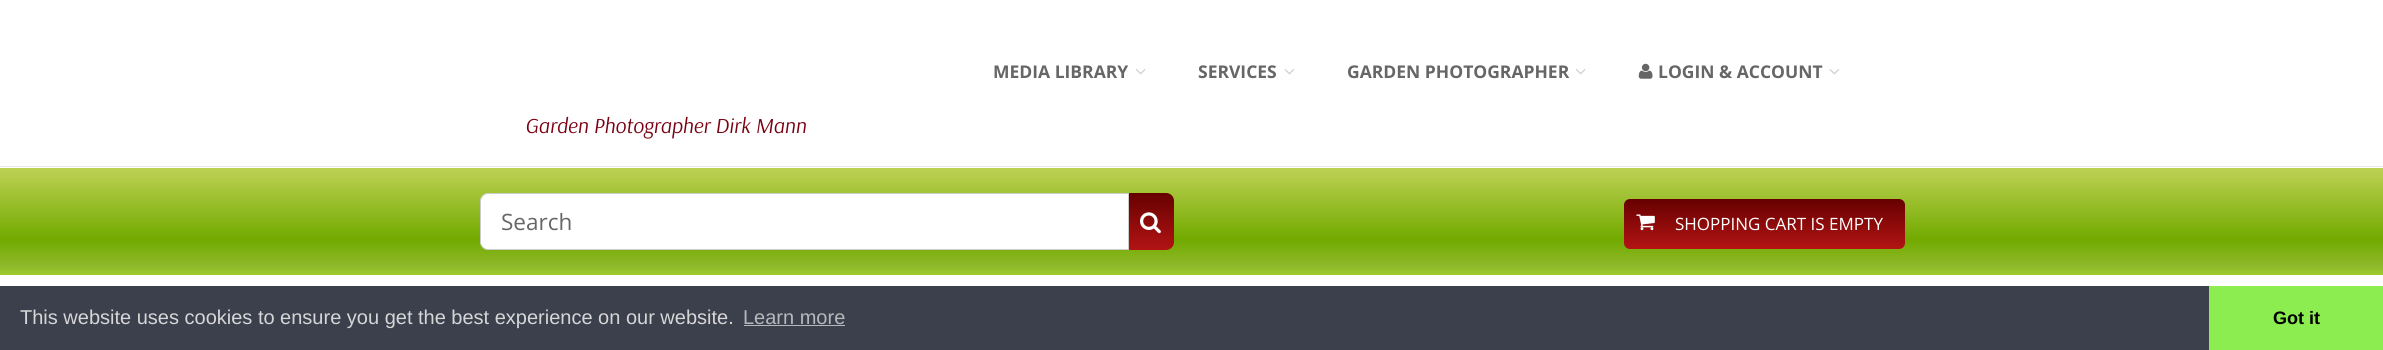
#include <cairo.h>
#include <math.h>
#include <stddef.h>

typedef struct { const char *family; double size; int italic, bold; unsigned color; } style_t;
static cairo_t *ctx;

static void ink(unsigned color) {
    cairo_set_source_rgb(ctx, (color >> 16) / 255.0, (color >> 8 & 255) / 255.0, (color & 255) / 255.0);
}

static void write(double x, double y, const char *s, const style_t *st) {
    cairo_select_font_face(ctx, st->family, st->italic ? CAIRO_FONT_SLANT_ITALIC : CAIRO_FONT_SLANT_NORMAL,
        st->bold ? CAIRO_FONT_WEIGHT_BOLD : CAIRO_FONT_WEIGHT_NORMAL);
    cairo_set_font_size(ctx, st->size);
    ink(st->color);
    cairo_move_to(ctx, x, y);
    cairo_show_text(ctx, s);
}

static void block(double x, double y, double w, double h, unsigned color) {
    ink(color);
    cairo_rectangle(ctx, x, y, w, h);
    cairo_fill(ctx);
}

static void round_path(double x, double y, double w, double h, double r) {
    cairo_new_sub_path(ctx);
    cairo_arc(ctx, x + w - r, y + h - r, r, 0, M_PI / 2);
    cairo_arc(ctx, x + r, y + h - r, r, M_PI / 2, M_PI);
    cairo_arc(ctx, x + r, y + r, r, M_PI, 1.5 * M_PI);
    cairo_arc(ctx, x + w - r, y + r, r, 1.5 * M_PI, 2 * M_PI);
    cairo_close_path(ctx);
}

static void paste(const char *path, double x, double y, double w, double h) {
    cairo_surface_t *image = cairo_image_surface_create_from_png(path);
    cairo_save(ctx);
    cairo_set_source_surface(ctx, image, x, y);
    cairo_rectangle(ctx, x, y, w, h);
    cairo_fill(ctx);
    cairo_restore(ctx);
    cairo_surface_destroy(image);
}

static const style_t s1 = {"Open Sans", 17.5, 0, 1, 0x666666};
static const style_t s2 = {"Arsenal", 21.5, 1, 0, 0x790011};
static const style_t s3 = {"Open Sans", 22.5, 0, 0, 0x666666};
static const style_t s4 = {"Open Sans", 17, 0, 0, 0xffffff};
static const style_t s5 = {"Liberation Sans", 20, 0, 0, 0xd6d6d6};
static const style_t s6 = {"Liberation Sans", 20, 0, 0, 0xb7b8bb};
static const style_t s7 = {"Liberation Sans", 18, 0, 1, 0x000000};

int main(void) {
    cairo_surface_t *surface = cairo_image_surface_create(CAIRO_FORMAT_RGB24, 2383, 350);
    ctx = cairo_create(surface);
    cairo_font_options_t *options = cairo_font_options_create();
    cairo_font_options_set_hint_metrics(options, CAIRO_HINT_METRICS_OFF);
    cairo_font_options_set_hint_style(options, CAIRO_HINT_STYLE_NONE);
    cairo_set_font_options(ctx, options);
    cairo_set_miter_limit(ctx, 4);
    cairo_pattern_t *gradient;
    ink(0xffffff);
    cairo_paint(ctx);
    block(0, 166, 2383, 1, 0xeaeaea);
    write(993, 78, "MEDIA LIBRARY", &s1);
    paste("pic1.png", 1135, 69, 11, 6);
    write(1198, 78, "SERVICES", &s1);
    paste("pic2.png", 1284, 69, 11, 6);
    write(1347, 78, "GARDEN PHOTOGRAPHER", &s1);
    paste("pic1.png", 1575, 69, 11, 6);
    paste("pic3.png", 1638, 63, 15, 16);
    write(1658, 78, "LOGIN & ACCOUNT", &s1);
    paste("pic2.png", 1829, 69, 11, 6);
    write(525, 133, "Garden Photographer Dirk Mann", &s2);
    gradient = cairo_pattern_create_linear(1192, 167, 1192, 275);
    cairo_pattern_add_color_stop_rgba(gradient, 0, 0.749, 0.824, 0.333, 1);
    cairo_pattern_add_color_stop_rgba(gradient, 0.67, 0.447, 0.667, 0, 1);
    cairo_pattern_add_color_stop_rgba(gradient, 0.92, 0.557, 0.725, 0.165, 1);
    cairo_pattern_add_color_stop_rgba(gradient, 1, 0.62, 0.796, 0.176, 1);
    cairo_set_source(ctx, gradient);
    cairo_pattern_destroy(gradient);
    cairo_rectangle(ctx, 0, 168, 2383, 107);
    cairo_fill(ctx);
    gradient = cairo_pattern_create_linear(1128, 193, 1128, 250);
    cairo_pattern_add_color_stop_rgba(gradient, 0, 0.4, 0, 0, 1);
    cairo_pattern_add_color_stop_rgba(gradient, 1, 0.702, 0.078, 0.078, 1);
    cairo_set_source(ctx, gradient);
    cairo_pattern_destroy(gradient);
    cairo_new_path(ctx);
    cairo_move_to(ctx, 1128, 193);
    cairo_line_to(ctx, 1166, 193);
    cairo_curve_to(ctx, 1170.5, 193, 1174, 196.5, 1174, 201);
    cairo_line_to(ctx, 1174, 242);
    cairo_curve_to(ctx, 1174, 246.5, 1170.5, 250, 1166, 250);
    cairo_line_to(ctx, 1128, 250);
    cairo_close_path(ctx);
    cairo_fill(ctx);
    ink(0xffffff);
    cairo_new_path(ctx);
    cairo_move_to(ctx, 488, 193.5);
    cairo_line_to(ctx, 1128.5, 193.5);
    cairo_line_to(ctx, 1128.5, 249.5);
    cairo_line_to(ctx, 488, 249.5);
    cairo_curve_to(ctx, 484, 249.5, 480.5, 246, 480.5, 242);
    cairo_line_to(ctx, 480.5, 201);
    cairo_curve_to(ctx, 480.5, 197, 484, 193.5, 488, 193.5);
    cairo_close_path(ctx);
    cairo_fill_preserve(ctx);
    ink(0xcccccc);
    cairo_set_line_width(ctx, 1);
    cairo_stroke(ctx);
    write(501, 230, "Search", &s3);
    paste("pic4.png", 1140, 212, 21, 22);
    gradient = cairo_pattern_create_linear(1624, 199, 1624, 249);
    cairo_pattern_add_color_stop_rgba(gradient, 0, 0.4, 0, 0, 1);
    cairo_pattern_add_color_stop_rgba(gradient, 1, 0.702, 0.078, 0.078, 1);
    cairo_set_source(ctx, gradient);
    cairo_pattern_destroy(gradient);
    round_path(1624, 199, 281, 50, 6);
    cairo_fill(ctx);
    paste("pic5.png", 1636, 214, 19, 17);
    write(1675, 230, "SHOPPING CART IS EMPTY", &s4);
    block(0, 286, 2209, 64, 0x3c404d);
    write(20, 324, "This website uses cookies to ensure you get the best experience on our website.", &s5);
    write(743, 324, "Learn more", &s6);
    block(744, 325, 101, 1, 0xb7b8bb);
    block(2209, 286, 174, 64, 0x8bed4f);
    write(2273, 324, "Got it", &s7);
    cairo_surface_write_to_png(surface, "screenshot.png");
    cairo_font_options_destroy(options);
    cairo_destroy(ctx);
    cairo_surface_destroy(surface);
    return 0;
}
